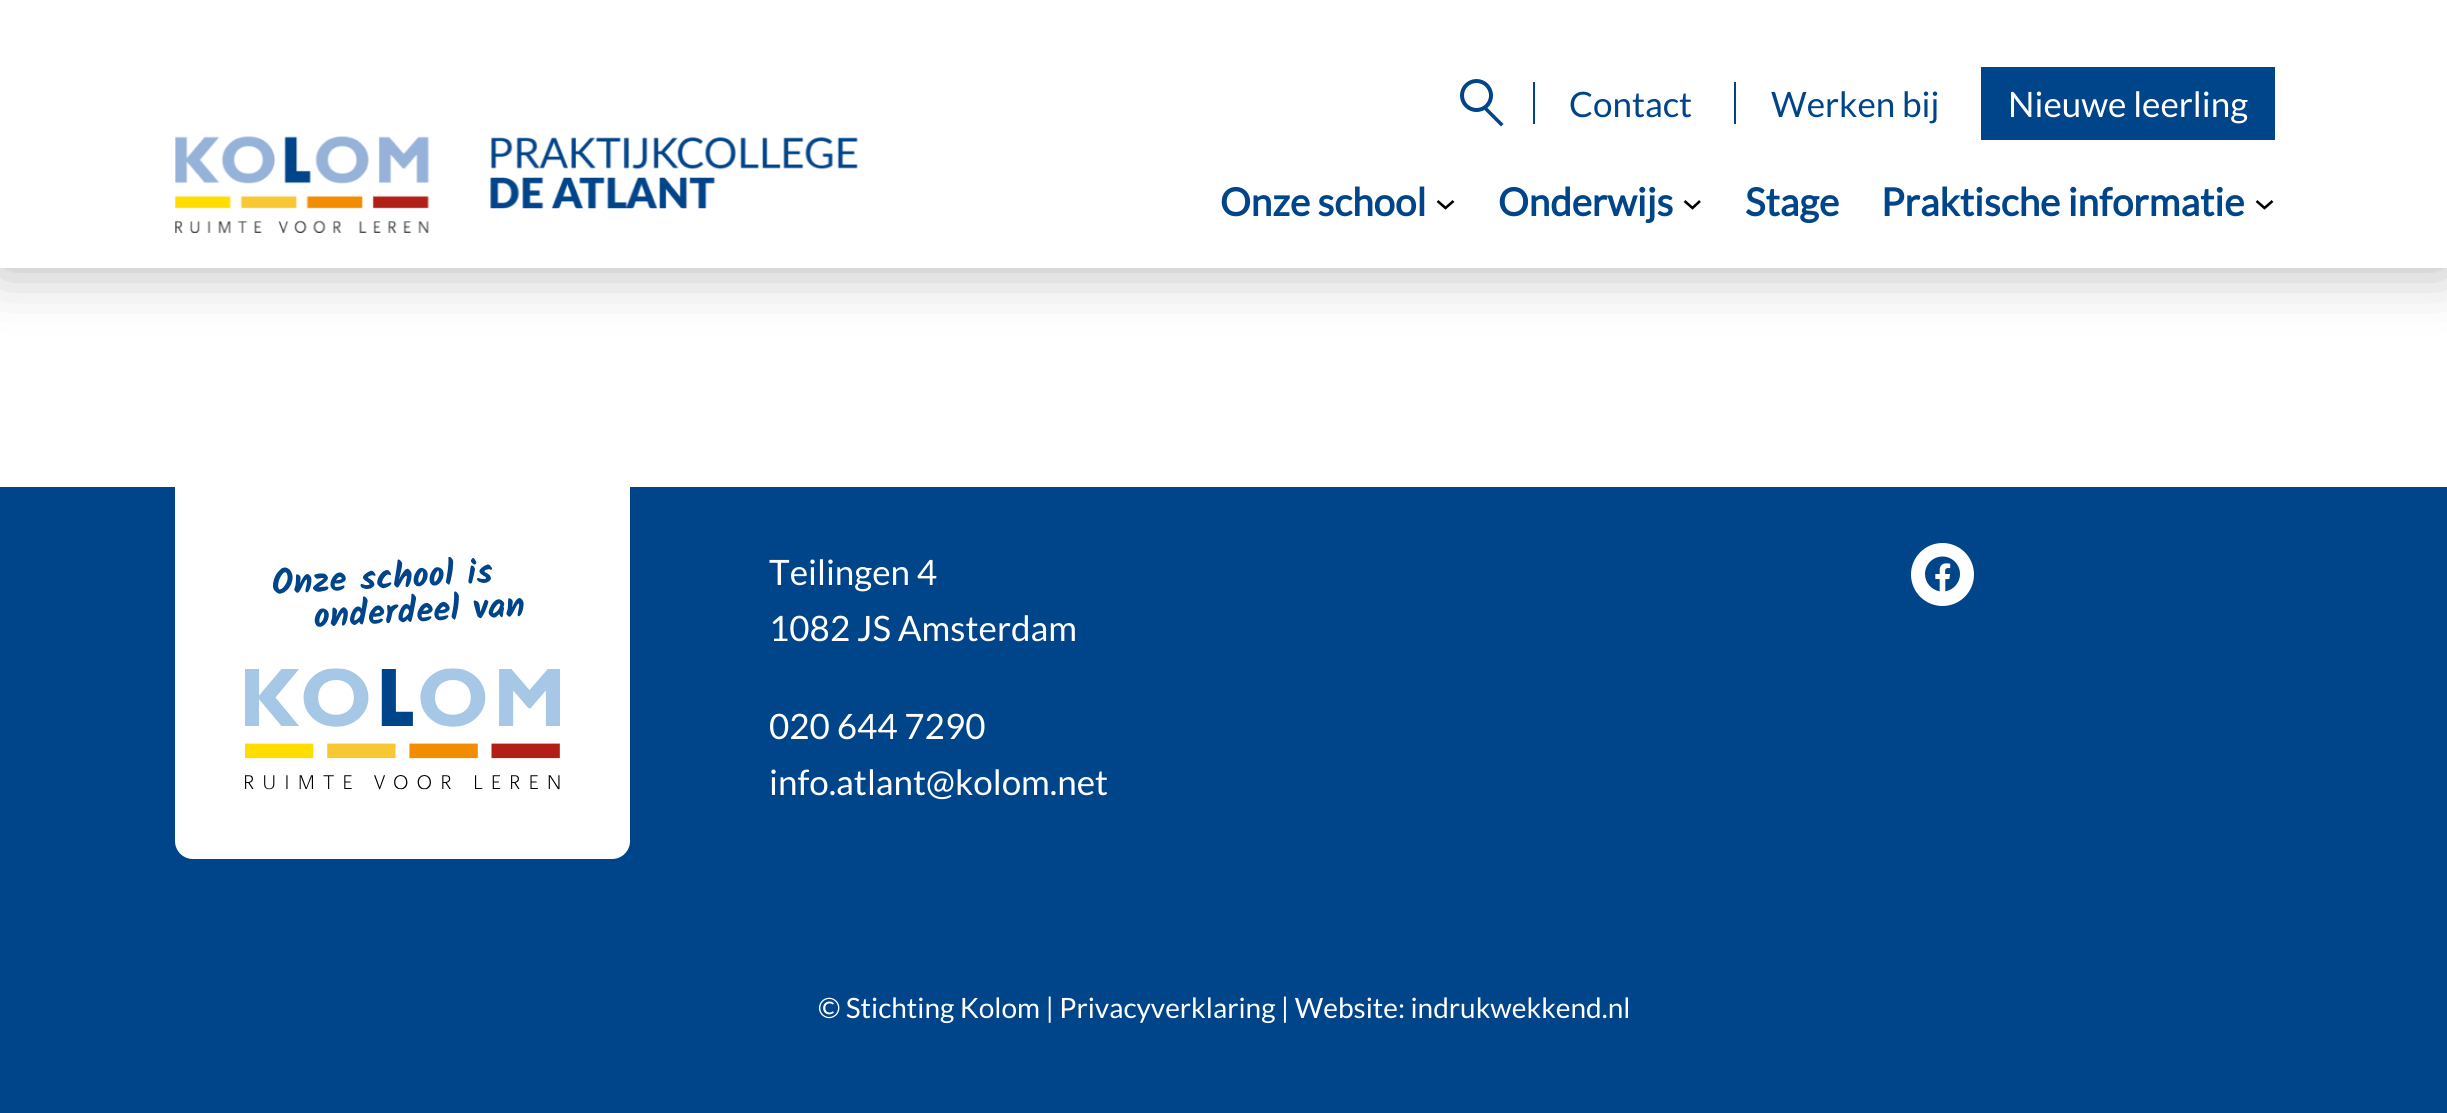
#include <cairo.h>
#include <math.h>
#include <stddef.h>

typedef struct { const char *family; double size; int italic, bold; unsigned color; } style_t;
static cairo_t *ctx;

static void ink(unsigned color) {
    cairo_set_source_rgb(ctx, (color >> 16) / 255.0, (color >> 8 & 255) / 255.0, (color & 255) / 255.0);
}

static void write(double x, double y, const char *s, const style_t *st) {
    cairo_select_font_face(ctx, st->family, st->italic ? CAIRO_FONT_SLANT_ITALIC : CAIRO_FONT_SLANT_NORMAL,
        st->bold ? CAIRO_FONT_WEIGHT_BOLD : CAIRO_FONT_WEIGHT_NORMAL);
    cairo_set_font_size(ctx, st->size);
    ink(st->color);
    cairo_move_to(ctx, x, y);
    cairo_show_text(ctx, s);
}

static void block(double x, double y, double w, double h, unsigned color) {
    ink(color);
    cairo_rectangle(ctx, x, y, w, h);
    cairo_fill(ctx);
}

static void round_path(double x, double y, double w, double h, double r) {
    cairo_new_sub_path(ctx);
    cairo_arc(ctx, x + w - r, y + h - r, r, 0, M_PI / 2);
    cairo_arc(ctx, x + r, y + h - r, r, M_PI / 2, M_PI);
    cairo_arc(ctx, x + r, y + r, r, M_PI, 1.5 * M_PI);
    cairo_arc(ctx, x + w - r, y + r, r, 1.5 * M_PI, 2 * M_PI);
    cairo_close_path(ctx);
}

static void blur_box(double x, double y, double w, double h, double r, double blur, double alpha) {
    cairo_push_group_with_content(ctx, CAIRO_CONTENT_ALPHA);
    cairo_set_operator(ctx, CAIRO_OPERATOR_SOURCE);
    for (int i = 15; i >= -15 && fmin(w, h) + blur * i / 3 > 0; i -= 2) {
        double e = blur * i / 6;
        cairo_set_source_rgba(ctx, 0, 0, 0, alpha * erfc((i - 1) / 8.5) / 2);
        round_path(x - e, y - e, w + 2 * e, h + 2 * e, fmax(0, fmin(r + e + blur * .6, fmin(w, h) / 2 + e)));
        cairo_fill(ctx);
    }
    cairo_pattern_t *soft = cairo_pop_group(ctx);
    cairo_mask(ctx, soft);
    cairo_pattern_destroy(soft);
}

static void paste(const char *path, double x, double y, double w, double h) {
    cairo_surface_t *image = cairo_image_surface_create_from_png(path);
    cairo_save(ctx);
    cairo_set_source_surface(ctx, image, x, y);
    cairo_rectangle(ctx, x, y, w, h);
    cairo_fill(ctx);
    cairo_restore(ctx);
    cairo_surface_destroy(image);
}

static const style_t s1 = {"Lato", 35, 0, 0, 0x004489};
static const style_t s2 = {"Lato", 35, 0, 0, 0xffffff};
static const style_t s3 = {"Lato", 38.5, 0, 1, 0x004489};
static const style_t s4 = {"Lato", 28, 0, 0, 0xffffff};

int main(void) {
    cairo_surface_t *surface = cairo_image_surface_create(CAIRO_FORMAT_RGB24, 2447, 1113);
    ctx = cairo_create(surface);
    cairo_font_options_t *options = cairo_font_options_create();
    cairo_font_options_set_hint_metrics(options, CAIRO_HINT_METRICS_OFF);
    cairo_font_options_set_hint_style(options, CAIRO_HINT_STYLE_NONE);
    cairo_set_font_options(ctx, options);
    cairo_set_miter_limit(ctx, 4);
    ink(0xffffff);
    cairo_paint(ctx);
    ink(0x000000);
    blur_box(0, 0, 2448, 268, 0, 30.5, 0.3);
    block(0, 0, 2447, 268, 0xffffff);
    paste("pic1.png", 175, 136, 683, 97);
    cairo_arc(ctx, 1476.5, 95.5, 14.5, 0, 2 * M_PI);
    ink(0x004489);
    cairo_set_line_width(ctx, 4);
    cairo_stroke(ctx);
    cairo_new_path(ctx);
    cairo_move_to(ctx, 1485, 105.5);
    cairo_line_to(ctx, 1503.5, 124);
    cairo_line_to(ctx, 1501, 126.5);
    cairo_line_to(ctx, 1482.5, 108);
    cairo_close_path(ctx);
    cairo_fill(ctx);
    write(1569, 117, "Contact", &s1);
    block(1533, 82, 2, 42, 0x004489);
    write(1771, 117, "Werken bij", &s1);
    block(1734, 82, 2, 42, 0x004489);
    block(1981, 67, 294, 73, 0x004489);
    write(2008, 117, "Nieuwe leerling", &s2);
    write(1220, 216, "Onze school", &s3);
    cairo_new_path(ctx);
    cairo_move_to(ctx, 1437.5, 201);
    cairo_line_to(ctx, 1445.5, 208);
    cairo_line_to(ctx, 1453.5, 201);
    ink(0x000000);
    cairo_set_line_width(ctx, 2.6);
    cairo_stroke(ctx);
    write(1498, 216, "Onderwijs", &s3);
    cairo_new_path(ctx);
    cairo_move_to(ctx, 1684.5, 201);
    cairo_line_to(ctx, 1692.5, 208);
    cairo_line_to(ctx, 1700, 201);
    ink(0x000000);
    cairo_stroke(ctx);
    write(1745, 216, "Stage", &s3);
    write(1881, 216, "Praktische informatie", &s3);
    cairo_new_path(ctx);
    cairo_move_to(ctx, 2256.5, 201);
    cairo_line_to(ctx, 2264.5, 208);
    cairo_line_to(ctx, 2272.5, 201);
    ink(0x000000);
    cairo_stroke(ctx);
    block(0, 487, 2447, 626, 0x004489);
    ink(0xffffff);
    cairo_new_path(ctx);
    cairo_move_to(ctx, 175, 487);
    cairo_line_to(ctx, 630, 487);
    cairo_line_to(ctx, 630, 841);
    cairo_curve_to(ctx, 630, 851, 622, 859, 612, 859);
    cairo_line_to(ctx, 193, 859);
    cairo_curve_to(ctx, 183, 859, 175, 851, 175, 841);
    cairo_close_path(ctx);
    cairo_fill(ctx);
    paste("pic2.png", 245, 557, 315, 233);
    write(769, 585, "Teilingen 4", &s2);
    write(769, 641, "1082 JS Amsterdam", &s2);
    write(769, 739, "020 644 7290", &s2);
    write(769, 795, "info.atlant@kolom.net", &s2);
    cairo_new_path(ctx);
    cairo_arc(ctx, 1942.5, 574.5, 31.5, 0, 2 * M_PI);
    cairo_fill(ctx);
    paste("pic3.png", 1925, 556, 35, 36);
    write(818, 1018, "© Stichting Kolom | Privacyverklaring | Website: indrukwekkend.nl", &s4);
    cairo_surface_write_to_png(surface, "screenshot.png");
    cairo_font_options_destroy(options);
    cairo_destroy(ctx);
    cairo_surface_destroy(surface);
    return 0;
}
